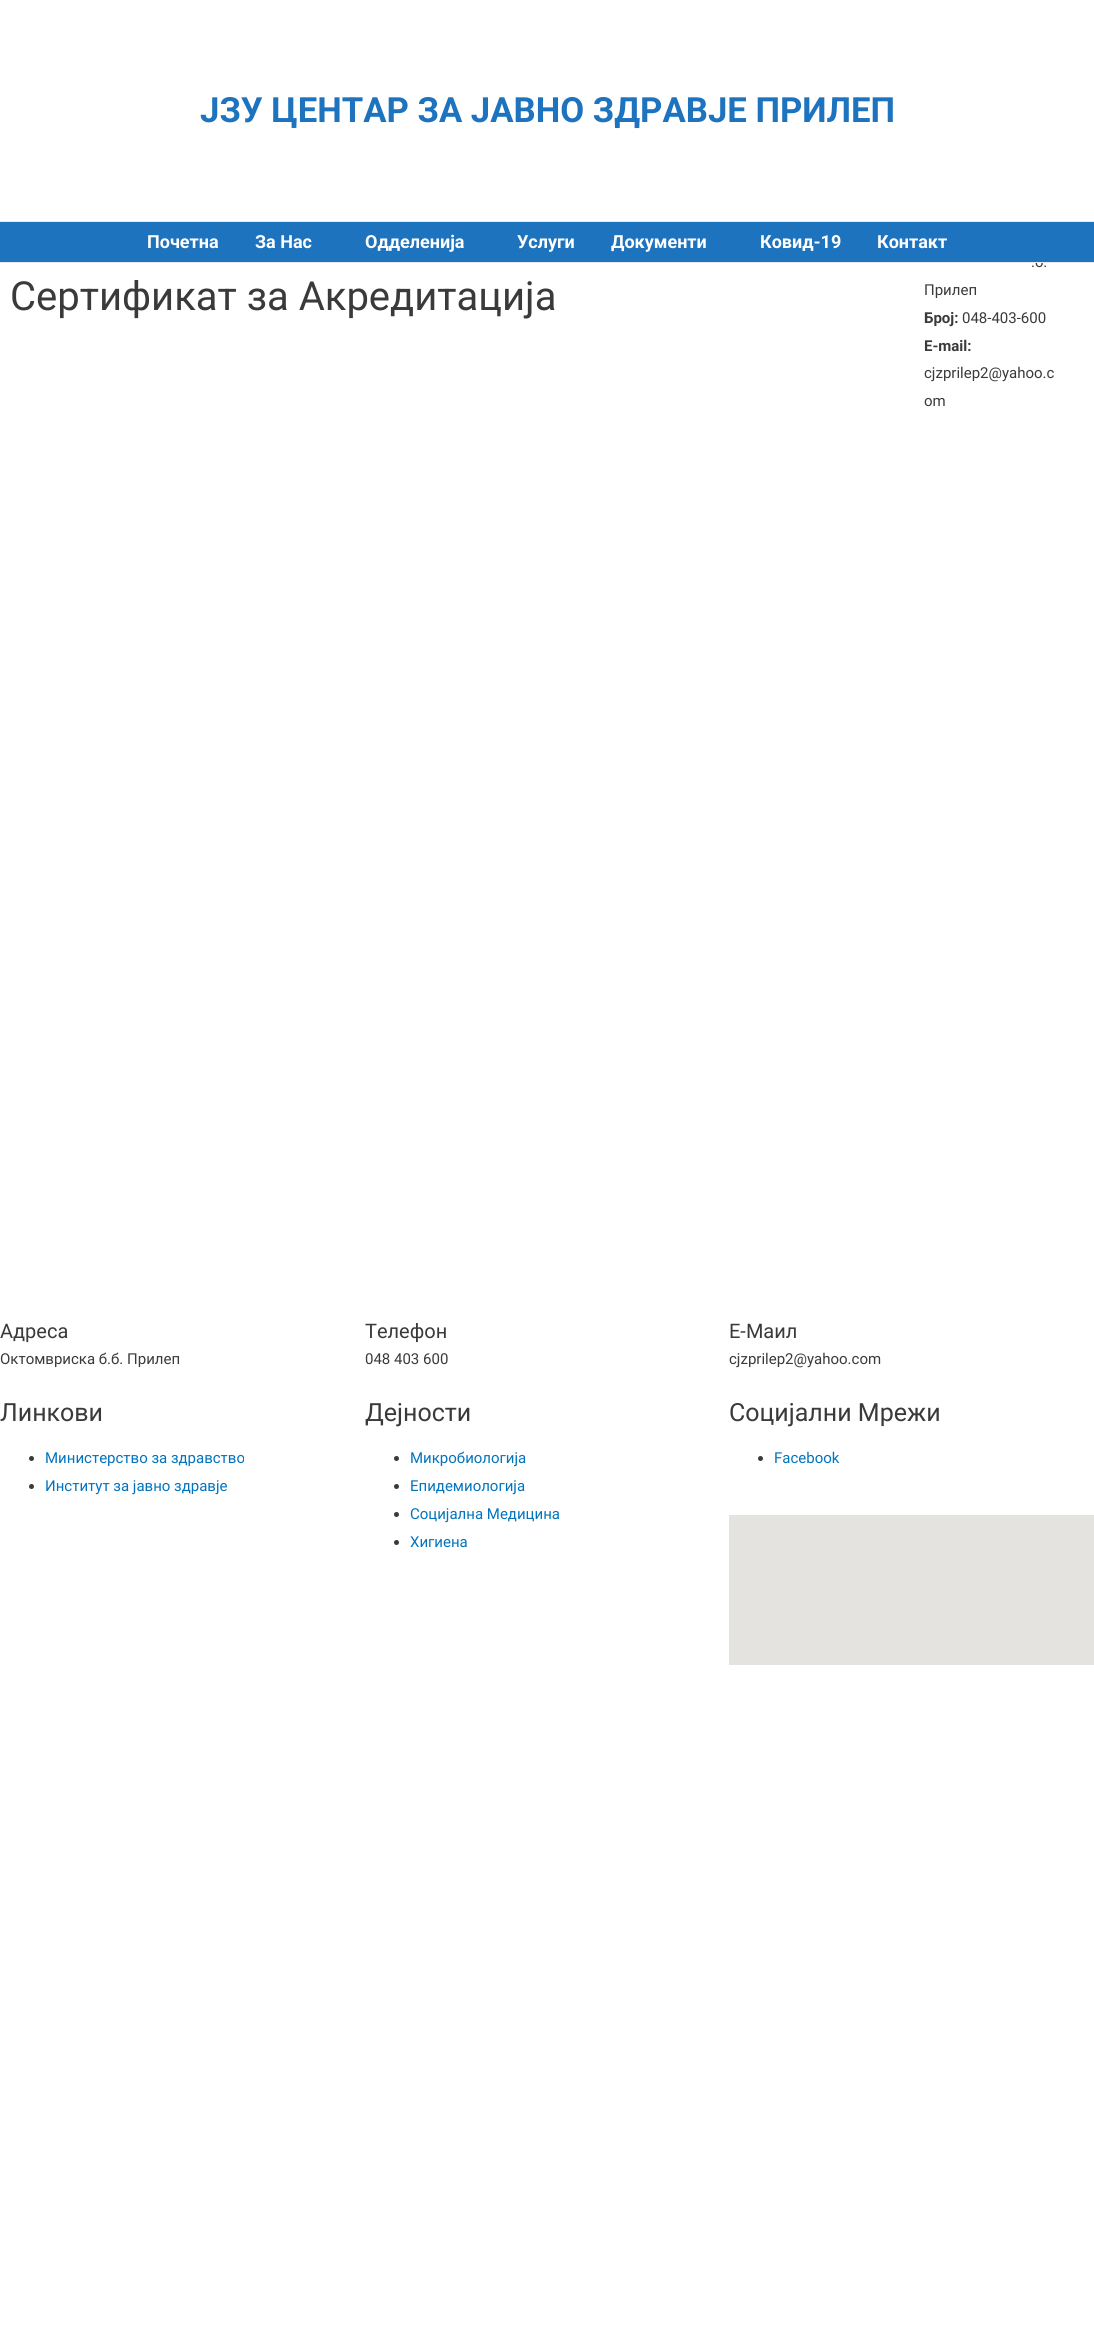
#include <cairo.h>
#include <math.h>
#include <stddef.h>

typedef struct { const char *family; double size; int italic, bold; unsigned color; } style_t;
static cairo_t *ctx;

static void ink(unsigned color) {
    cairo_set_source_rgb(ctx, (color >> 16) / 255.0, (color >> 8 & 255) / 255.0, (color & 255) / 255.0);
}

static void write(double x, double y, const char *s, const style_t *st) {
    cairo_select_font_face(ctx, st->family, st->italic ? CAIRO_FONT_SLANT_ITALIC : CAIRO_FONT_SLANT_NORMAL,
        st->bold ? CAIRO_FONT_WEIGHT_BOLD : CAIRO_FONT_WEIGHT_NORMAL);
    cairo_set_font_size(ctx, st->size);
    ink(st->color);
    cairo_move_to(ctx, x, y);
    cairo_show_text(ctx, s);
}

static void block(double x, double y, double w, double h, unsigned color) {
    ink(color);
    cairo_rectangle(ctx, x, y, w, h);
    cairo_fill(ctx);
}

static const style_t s1 = {"Roboto", 34.7, 0, 1, 0x1e73be};
static const style_t s2 = {"Roboto", 15, 0, 0, 0x3a3a3a};
static const style_t s3 = {"Roboto", 15, 0, 1, 0x3a3a3a};
static const style_t s4 = {"Roboto", 18, 0, 1, 0xffffff};
static const style_t s5 = {"Roboto", 40, 0, 0, 0x3a3a3a};
static const style_t s6 = {"Roboto", 20, 0, 0, 0x3a3a3a};
static const style_t s7 = {"Roboto", 25, 0, 0, 0x3a3a3a};
static const style_t s8 = {"Roboto", 15, 0, 0, 0x0274be};

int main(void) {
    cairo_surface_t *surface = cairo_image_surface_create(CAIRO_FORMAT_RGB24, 1094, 2349);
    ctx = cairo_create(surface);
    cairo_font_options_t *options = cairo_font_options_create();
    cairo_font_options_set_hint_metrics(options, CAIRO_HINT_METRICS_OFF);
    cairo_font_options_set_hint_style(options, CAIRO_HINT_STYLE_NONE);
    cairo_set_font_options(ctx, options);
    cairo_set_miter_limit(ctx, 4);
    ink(0xffffff);
    cairo_paint(ctx);
    block(0, 221, 1094, 1, 0xeaeaea);
    write(200, 122, "ЈЗУ ЦЕНТАР ЗА ЈАВНО ЗДРАВЈЕ ПРИЛЕП", &s1);
    write(1031, 267, ".б.", &s2);
    write(924, 295, "Прилеп", &s2);
    write(924, 323, "Број:", &s3);
    write(962, 323, "048-403-600", &s2);
    write(924, 351, "E-mail:", &s3);
    write(924, 378, "cjzprilep2@yahoo.c", &s2);
    write(924, 406, "om", &s2);
    block(0, 222, 1094, 40, 0x1e73be);
    block(0, 262, 1094, 1, 0xeaeaea);
    write(147, 248, "Почетна", &s4);
    write(255, 248, "За Нас", &s4);
    write(365, 248, "Одделенија", &s4);
    write(517, 248, "Услуги", &s4);
    write(611, 248, "Документи", &s4);
    write(760, 248, "Ковид-19", &s4);
    write(877, 248, "Контакт", &s4);
    write(10, 310, "Сертификат за Акредитација", &s5);
    write(0, 1338, "Адреса", &s6);
    write(0, 1364, "Oктомвриска б.б. Прилеп", &s2);
    write(365, 1338, "Телефон", &s6);
    write(365, 1364, "048 403 600", &s2);
    write(729, 1338, "Е-Маил", &s6);
    write(729, 1364, "cjzprilep2@yahoo.com", &s2);
    write(0, 1421, "Линкови", &s7);
    cairo_new_path(ctx);
    cairo_arc(ctx, 31.5, 1458.5, 2.5, 0, 2 * M_PI);
    cairo_fill(ctx);
    write(45, 1463, "Министерство за здравство", &s8);
    ink(0x3a3a3a);
    cairo_new_path(ctx);
    cairo_arc(ctx, 31.5, 1486.5, 2.5, 0, 2 * M_PI);
    cairo_fill(ctx);
    write(45, 1491, "Институт за јавно здравје", &s8);
    write(365, 1421, "Дејности", &s7);
    cairo_new_path(ctx);
    cairo_arc(ctx, 396.5, 1458.5, 2.5, 0, 2 * M_PI);
    cairo_fill(ctx);
    write(410, 1463, "Микробиологија", &s8);
    ink(0x3a3a3a);
    cairo_new_path(ctx);
    cairo_arc(ctx, 396.5, 1486.5, 2.5, 0, 2 * M_PI);
    cairo_fill(ctx);
    write(410, 1491, "Епидемиологија", &s8);
    ink(0x3a3a3a);
    cairo_new_path(ctx);
    cairo_arc(ctx, 396.5, 1514.5, 2.5, 0, 2 * M_PI);
    cairo_fill(ctx);
    write(410, 1519, "Социјална Медицина", &s8);
    ink(0x3a3a3a);
    cairo_new_path(ctx);
    cairo_arc(ctx, 396.5, 1542.5, 2.5, 0, 2 * M_PI);
    cairo_fill(ctx);
    write(410, 1547, "Хигиена", &s8);
    write(729, 1421, "Социјални Мрежи", &s7);
    cairo_new_path(ctx);
    cairo_arc(ctx, 760.5, 1458.5, 2.5, 0, 2 * M_PI);
    cairo_fill(ctx);
    write(774, 1463, "Facebook", &s8);
    block(729, 1515, 365, 150, 0xe5e3df);
    cairo_surface_write_to_png(surface, "screenshot.png");
    cairo_font_options_destroy(options);
    cairo_destroy(ctx);
    cairo_surface_destroy(surface);
    return 0;
}
